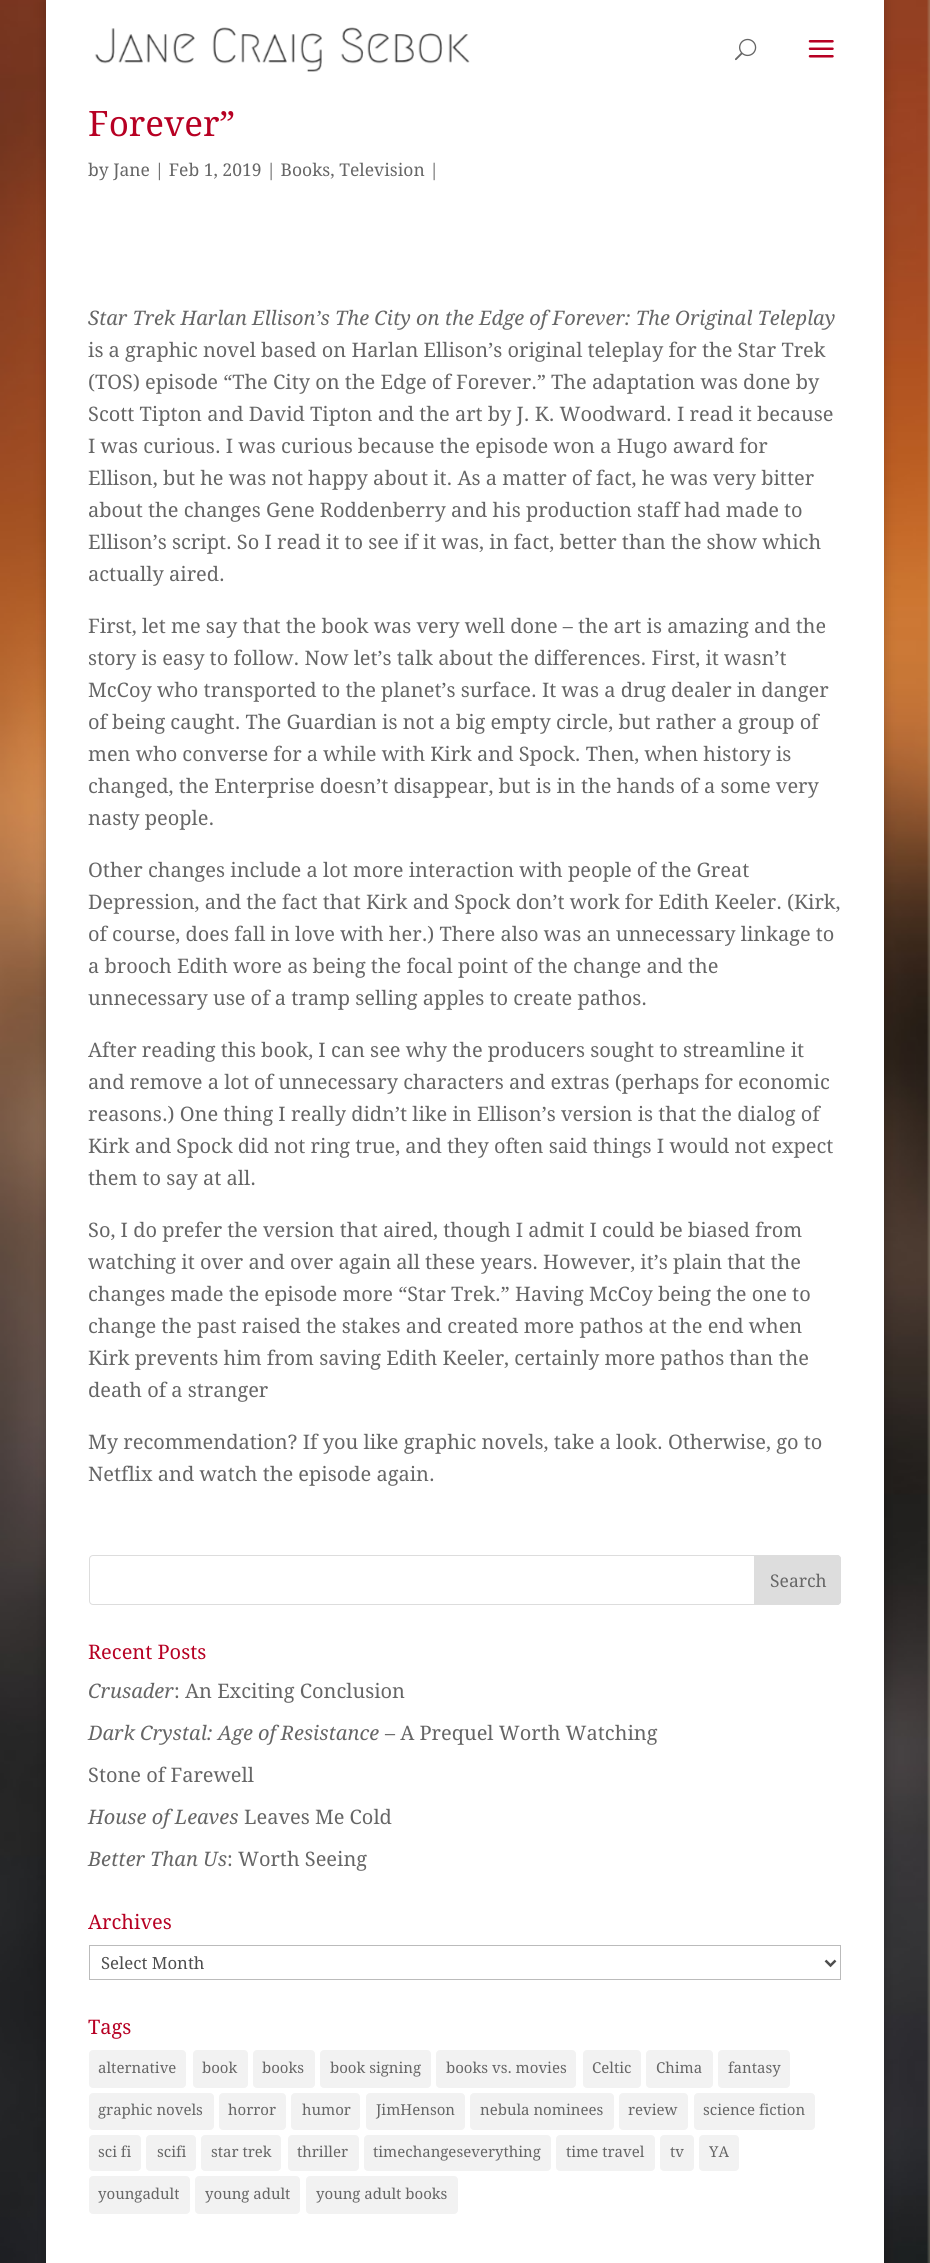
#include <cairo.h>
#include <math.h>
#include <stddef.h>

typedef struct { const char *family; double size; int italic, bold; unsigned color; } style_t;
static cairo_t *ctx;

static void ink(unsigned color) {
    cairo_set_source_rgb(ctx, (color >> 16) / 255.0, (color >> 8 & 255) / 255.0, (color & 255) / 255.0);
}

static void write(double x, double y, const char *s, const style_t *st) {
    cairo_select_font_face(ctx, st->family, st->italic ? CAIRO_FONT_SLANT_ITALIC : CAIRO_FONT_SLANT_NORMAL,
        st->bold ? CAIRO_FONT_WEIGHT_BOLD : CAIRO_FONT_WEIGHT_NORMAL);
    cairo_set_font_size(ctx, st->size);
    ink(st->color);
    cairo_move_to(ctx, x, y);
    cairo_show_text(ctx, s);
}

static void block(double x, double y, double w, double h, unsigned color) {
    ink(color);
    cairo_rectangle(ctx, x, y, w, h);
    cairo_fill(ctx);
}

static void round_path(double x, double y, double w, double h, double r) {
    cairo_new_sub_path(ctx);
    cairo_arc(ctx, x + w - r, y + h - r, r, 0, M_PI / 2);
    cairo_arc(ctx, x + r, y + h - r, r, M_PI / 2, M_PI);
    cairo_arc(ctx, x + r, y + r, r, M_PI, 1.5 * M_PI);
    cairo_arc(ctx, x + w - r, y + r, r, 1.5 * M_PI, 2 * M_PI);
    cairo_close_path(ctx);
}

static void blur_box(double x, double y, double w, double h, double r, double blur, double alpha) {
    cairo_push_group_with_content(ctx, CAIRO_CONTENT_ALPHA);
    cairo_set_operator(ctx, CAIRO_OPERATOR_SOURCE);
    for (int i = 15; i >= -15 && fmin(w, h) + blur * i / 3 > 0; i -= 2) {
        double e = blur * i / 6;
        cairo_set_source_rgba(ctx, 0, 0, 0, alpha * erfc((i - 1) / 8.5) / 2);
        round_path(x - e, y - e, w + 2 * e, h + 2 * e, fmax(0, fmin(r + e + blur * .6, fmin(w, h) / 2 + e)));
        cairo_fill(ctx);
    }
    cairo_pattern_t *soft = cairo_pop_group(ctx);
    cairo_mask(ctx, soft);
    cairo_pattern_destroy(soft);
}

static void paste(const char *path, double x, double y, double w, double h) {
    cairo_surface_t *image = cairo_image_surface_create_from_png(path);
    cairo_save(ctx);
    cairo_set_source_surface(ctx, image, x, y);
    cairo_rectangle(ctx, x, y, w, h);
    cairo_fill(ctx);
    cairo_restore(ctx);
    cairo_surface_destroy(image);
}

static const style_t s1 = {"Droid Serif", 35, 0, 0, 0xb70023};
static const style_t s2 = {"Droid Serif", 17.5, 0, 0, 0x666666};
static const style_t s3 = {"Droid Serif", 20, 1, 0, 0x666666};
static const style_t s4 = {"Droid Serif", 20, 0, 0, 0x666666};
static const style_t s5 = {"Droid Serif", 20, 0, 0, 0xb70023};
static const style_t s6 = {"Droid Serif", 16.75, 0, 0, 0x4e4e4e};
static const style_t s7 = {"Droid Serif", 15, 0, 0, 0x666666};

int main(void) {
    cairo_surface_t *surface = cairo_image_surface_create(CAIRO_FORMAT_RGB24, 930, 2263);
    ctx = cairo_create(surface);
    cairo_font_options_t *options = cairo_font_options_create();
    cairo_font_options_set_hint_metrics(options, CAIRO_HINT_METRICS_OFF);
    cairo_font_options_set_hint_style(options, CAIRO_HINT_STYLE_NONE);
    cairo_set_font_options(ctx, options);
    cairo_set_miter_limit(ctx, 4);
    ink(0xbcbb9f);
    cairo_paint(ctx);
    paste("pic1.png", 0, 0, 930, 2263);
    ink(0x000000);
    blur_box(46, 0, 838, 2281, 0, 6, 0.2);
    block(46, 0, 838, 2263, 0xffffff);
    paste("pic2.png", 94, 27, 376, 45);
    paste("pic3.png", 735, 38, 22, 23);
    paste("pic4.png", 808, 40, 26, 18);
    write(88, 136, "Forever”", &s1);
    write(88, 176, "by Jane | Feb 1, 2019 | Books, Television |", &s2);
    write(88, 325, "Star Trek Harlan Ellison’s The City on the Edge of Forever: The Original Teleplay", &s3);
    write(88, 357, "is a graphic novel based on Harlan Ellison’s original teleplay for the Star Trek", &s4);
    write(88, 389, "(TOS) episode “The City on the Edge of Forever.” The adaptation was done by", &s4);
    write(88, 421, "Scott Tipton and David Tipton and the art by J. K. Woodward. I read it because", &s4);
    write(88, 453, "I was curious. I was curious because the episode won a Hugo award for", &s4);
    write(88, 485, "Ellison, but he was not happy about it. As a matter of fact, he was very bitter", &s4);
    write(88, 517, "about the changes Gene Roddenberry and his production staff had made to", &s4);
    write(88, 549, "Ellison’s script. So I read it to see if it was, in fact, better than the show which", &s4);
    write(88, 581, "actually aired.", &s4);
    write(88, 633, "First, let me say that the book was very well done – the art is amazing and the", &s4);
    write(88, 665, "story is easy to follow. Now let’s talk about the differences. First, it wasn’t", &s4);
    write(88, 697, "McCoy who transported to the planet’s surface. It was a drug dealer in danger", &s4);
    write(88, 729, "of being caught. The Guardian is not a big empty circle, but rather a group of", &s4);
    write(88, 761, "men who converse for a while with Kirk and Spock. Then, when history is", &s4);
    write(88, 793, "changed, the Enterprise doesn’t disappear, but is in the hands of a some very", &s4);
    write(88, 825, "nasty people.", &s4);
    write(88, 877, "Other changes include a lot more interaction with people of the Great", &s4);
    write(88, 909, "Depression, and the fact that Kirk and Spock don’t work for Edith Keeler. (Kirk,", &s4);
    write(88, 941, "of course, does fall in love with her.) There also was an unnecessary linkage to", &s4);
    write(88, 973, "a brooch Edith wore as being the focal point of the change and the", &s4);
    write(88, 1005, "unnecessary use of a tramp selling apples to create pathos.", &s4);
    write(88, 1057, "After reading this book, I can see why the producers sought to streamline it", &s4);
    write(88, 1089, "and remove a lot of unnecessary characters and extras (perhaps for economic", &s4);
    write(88, 1121, "reasons.) One thing I really didn’t like in Ellison’s version is that the dialog of", &s4);
    write(88, 1153, "Kirk and Spock did not ring true, and they often said things I would not expect", &s4);
    write(88, 1185, "them to say at all.", &s4);
    write(88, 1237, "So, I do prefer the version that aired, though I admit I could be biased from", &s4);
    write(88, 1269, "watching it over and over again all these years. However, it’s plain that the", &s4);
    write(88, 1301, "changes made the episode more “Star Trek.” Having McCoy being the one to", &s4);
    write(88, 1333, "change the past raised the stakes and created more pathos at the end when", &s4);
    write(88, 1365, "Kirk prevents him from saving Edith Keeler, certainly more pathos than the", &s4);
    write(88, 1397, "death of a stranger", &s4);
    write(88, 1449, "My recommendation? If you like graphic novels, take a look. Otherwise, go to", &s4);
    write(88, 1481, "Netflix and watch the episode again.", &s4);
    round_path(89.5, 1555.5, 751, 49, 3.5);
    ink(0xdddddd);
    cairo_set_line_width(ctx, 1);
    cairo_stroke(ctx);
    cairo_new_path(ctx);
    cairo_move_to(ctx, 754.5, 1555.5);
    cairo_line_to(ctx, 837, 1555.5);
    cairo_curve_to(ctx, 839, 1555.5, 840.5, 1557, 840.5, 1559);
    cairo_line_to(ctx, 840.5, 1601);
    cairo_curve_to(ctx, 840.5, 1603, 839, 1604.5, 837, 1604.5);
    cairo_line_to(ctx, 754.5, 1604.5);
    cairo_close_path(ctx);
    cairo_fill_preserve(ctx);
    cairo_stroke(ctx);
    write(770, 1587, "Search", &s2);
    write(88, 1659, "Recent Posts", &s5);
    write(88, 1698, "Crusader", &s3);
    write(174, 1698, ": An Exciting Conclusion", &s4);
    write(88, 1740, "Dark Crystal: Age of Resistance", &s3);
    write(385, 1740, "– A Prequel Worth Watching", &s4);
    write(88, 1782, "Stone of Farewell", &s4);
    write(88, 1824, "House of Leaves", &s3);
    write(244, 1824, "Leaves Me Cold", &s4);
    write(88, 1866, "Better Than Us", &s3);
    write(227, 1866, ": Worth Seeing", &s4);
    write(88, 1929, "Archives", &s5);
    cairo_rectangle(ctx, 89.5, 1945.5, 751, 34);
    ink(0xbbbbbb);
    cairo_stroke(ctx);
    cairo_new_path(ctx);
    cairo_move_to(ctx, 825.5, 1960.5);
    cairo_line_to(ctx, 830.5, 1965.5);
    cairo_line_to(ctx, 835.5, 1960.5);
    ink(0x4e4e4e);
    cairo_set_line_width(ctx, 2.5);
    cairo_stroke(ctx);
    write(101, 1969, "Select Month", &s6);
    write(88, 2034, "Tags", &s5);
    ink(0xf2f2f2);
    round_path(89, 2050, 97, 38, 4);
    cairo_fill(ctx);
    write(98, 2073, "alternative", &s7);
    ink(0xf2f2f2);
    round_path(193, 2050, 55, 38, 4);
    cairo_fill(ctx);
    write(202, 2073, "book", &s7);
    ink(0xf2f2f2);
    round_path(253, 2050, 62, 38, 4);
    cairo_fill(ctx);
    write(262, 2073, "books", &s7);
    ink(0xf2f2f2);
    round_path(320, 2050, 111, 38, 4);
    cairo_fill(ctx);
    write(330, 2073, "book signing", &s7);
    ink(0xf2f2f2);
    round_path(436, 2050, 140, 38, 4);
    cairo_fill(ctx);
    write(446, 2073, "books vs. movies", &s7);
    ink(0xf2f2f2);
    round_path(583, 2050, 58, 38, 4);
    cairo_fill(ctx);
    write(592, 2073, "Celtic", &s7);
    ink(0xf2f2f2);
    round_path(646, 2050, 67, 38, 4);
    cairo_fill(ctx);
    write(656, 2073, "Chima", &s7);
    ink(0xf2f2f2);
    round_path(718, 2050, 72, 38, 4);
    cairo_fill(ctx);
    write(728, 2073, "fantasy", &s7);
    ink(0xf2f2f2);
    round_path(89, 2093, 125, 37, 4);
    cairo_fill(ctx);
    write(98, 2115, "graphic novels", &s7);
    ink(0xf2f2f2);
    round_path(219, 2093, 67, 37, 4);
    cairo_fill(ctx);
    write(228, 2115, "horror", &s7);
    ink(0xf2f2f2);
    round_path(291, 2093, 69, 37, 4);
    cairo_fill(ctx);
    write(302, 2115, "humor", &s7);
    ink(0xf2f2f2);
    round_path(366, 2093, 99, 37, 4);
    cairo_fill(ctx);
    write(376, 2115, "JimHenson", &s7);
    ink(0xf2f2f2);
    round_path(470, 2093, 144, 37, 4);
    cairo_fill(ctx);
    write(480, 2115, "nebula nominees", &s7);
    ink(0xf2f2f2);
    round_path(619, 2093, 69, 37, 4);
    cairo_fill(ctx);
    write(628, 2115, "review", &s7);
    ink(0xf2f2f2);
    round_path(694, 2093, 121, 37, 4);
    cairo_fill(ctx);
    write(703, 2115, "science fiction", &s7);
    ink(0xf2f2f2);
    round_path(89, 2135, 52, 36, 4);
    cairo_fill(ctx);
    write(98, 2157, "sci fi", &s7);
    ink(0xf2f2f2);
    round_path(146, 2135, 50, 36, 4);
    cairo_fill(ctx);
    write(157, 2157, "scifi", &s7);
    ink(0xf2f2f2);
    round_path(201, 2135, 80, 36, 4);
    cairo_fill(ctx);
    write(211, 2157, "star trek", &s7);
    ink(0xf2f2f2);
    round_path(288, 2135, 71, 36, 4);
    cairo_fill(ctx);
    write(297, 2157, "thriller", &s7);
    ink(0xf2f2f2);
    round_path(364, 2135, 187, 36, 4);
    cairo_fill(ctx);
    write(373, 2157, "timechangeseverything", &s7);
    ink(0xf2f2f2);
    round_path(556, 2135, 99, 36, 4);
    cairo_fill(ctx);
    write(566, 2157, "time travel", &s7);
    ink(0xf2f2f2);
    round_path(660, 2135, 34, 36, 4);
    cairo_fill(ctx);
    write(670, 2157, "tv", &s7);
    ink(0xf2f2f2);
    round_path(699, 2135, 40, 36, 4);
    cairo_fill(ctx);
    write(709, 2157, "YA", &s7);
    ink(0xf2f2f2);
    round_path(89, 2176, 101, 38, 4);
    cairo_fill(ctx);
    write(98, 2199, "youngadult", &s7);
    ink(0xf2f2f2);
    round_path(195, 2176, 105, 38, 4);
    cairo_fill(ctx);
    write(205, 2199, "young adult", &s7);
    ink(0xf2f2f2);
    round_path(306, 2176, 152, 38, 4);
    cairo_fill(ctx);
    write(316, 2199, "young adult books", &s7);
    cairo_surface_write_to_png(surface, "screenshot.png");
    cairo_font_options_destroy(options);
    cairo_destroy(ctx);
    cairo_surface_destroy(surface);
    return 0;
}
